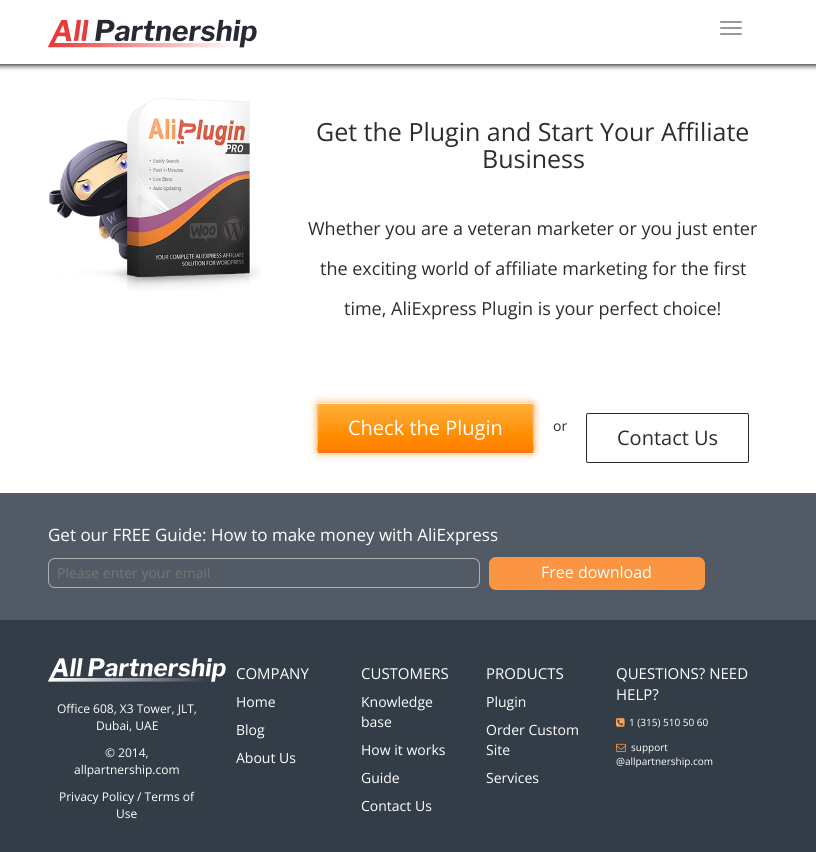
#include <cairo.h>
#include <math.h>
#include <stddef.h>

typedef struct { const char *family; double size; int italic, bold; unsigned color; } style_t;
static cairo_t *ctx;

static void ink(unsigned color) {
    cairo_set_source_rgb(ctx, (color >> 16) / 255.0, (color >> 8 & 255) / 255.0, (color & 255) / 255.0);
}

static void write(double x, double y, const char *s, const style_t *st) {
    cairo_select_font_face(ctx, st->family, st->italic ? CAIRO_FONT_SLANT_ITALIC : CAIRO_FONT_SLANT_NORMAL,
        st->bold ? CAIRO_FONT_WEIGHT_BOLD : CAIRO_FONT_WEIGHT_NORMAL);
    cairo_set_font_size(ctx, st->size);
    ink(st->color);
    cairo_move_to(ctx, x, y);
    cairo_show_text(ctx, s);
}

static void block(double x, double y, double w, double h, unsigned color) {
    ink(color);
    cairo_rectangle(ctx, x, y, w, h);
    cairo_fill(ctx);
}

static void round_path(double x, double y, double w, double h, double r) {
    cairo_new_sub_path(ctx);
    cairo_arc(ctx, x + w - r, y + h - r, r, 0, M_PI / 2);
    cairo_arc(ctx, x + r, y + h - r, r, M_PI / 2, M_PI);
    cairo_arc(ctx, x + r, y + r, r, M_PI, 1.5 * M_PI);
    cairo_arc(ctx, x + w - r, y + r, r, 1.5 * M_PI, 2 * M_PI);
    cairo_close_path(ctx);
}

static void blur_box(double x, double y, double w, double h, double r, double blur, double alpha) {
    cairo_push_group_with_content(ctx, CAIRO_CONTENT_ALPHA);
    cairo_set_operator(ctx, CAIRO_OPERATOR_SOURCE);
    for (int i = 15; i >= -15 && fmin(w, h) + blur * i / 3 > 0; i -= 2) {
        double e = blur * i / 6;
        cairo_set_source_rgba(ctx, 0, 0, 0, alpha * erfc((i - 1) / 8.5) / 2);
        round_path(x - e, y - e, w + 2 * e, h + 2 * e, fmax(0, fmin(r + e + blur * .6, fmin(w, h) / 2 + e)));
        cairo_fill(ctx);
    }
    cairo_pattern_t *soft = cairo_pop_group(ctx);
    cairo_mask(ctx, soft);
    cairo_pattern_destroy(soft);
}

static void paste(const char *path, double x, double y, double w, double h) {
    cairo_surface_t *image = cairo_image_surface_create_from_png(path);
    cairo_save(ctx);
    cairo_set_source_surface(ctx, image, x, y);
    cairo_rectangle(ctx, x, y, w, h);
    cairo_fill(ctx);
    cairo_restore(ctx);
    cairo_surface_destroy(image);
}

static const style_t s1 = {"Open Sans", 25, 0, 0, 0x2d2d2d};
static const style_t s2 = {"Open Sans", 18, 0, 0, 0x2d2d2d};
static const style_t s3 = {"Open Sans", 20, 0, 0, 0xffffff};
static const style_t s4 = {"Open Sans", 14, 0, 0, 0x2d2d2d};
static const style_t s5 = {"Open Sans", 20, 0, 0, 0x2d2d2d};
static const style_t s6 = {"Open Sans", 17, 0, 0, 0xffffff};
static const style_t s7 = {"Open Sans", 14, 0, 0, 0x757575};
static const style_t s8 = {"Open Sans", 16, 0, 0, 0xffffff};
static const style_t s9 = {"Open Sans", 12, 0, 0, 0xffffff};
static const style_t s10 = {"Open Sans", 15, 0, 0, 0xffffff};
static const style_t s11 = {"Open Sans", 14, 0, 0, 0xffffff};
static const style_t s12 = {"Open Sans", 10, 0, 0, 0xffffff};

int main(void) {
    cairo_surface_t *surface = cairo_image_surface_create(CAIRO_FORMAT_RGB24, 816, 852);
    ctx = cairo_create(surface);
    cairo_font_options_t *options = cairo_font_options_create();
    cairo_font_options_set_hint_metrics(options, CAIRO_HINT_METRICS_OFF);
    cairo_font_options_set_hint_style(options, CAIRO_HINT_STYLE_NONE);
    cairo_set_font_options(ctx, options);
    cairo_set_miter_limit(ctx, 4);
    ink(0xffffff);
    cairo_paint(ctx);
    ink(0x000000);
    blur_box(-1, -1, 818, 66, 0, 3, 1);
    block(0, 0, 816, 64, 0xffffff);
    paste("pic1.png", 48, 19, 209, 29);
    ink(0x999999);
    round_path(720, 21, 22, 2, 1);
    cairo_fill(ctx);
    round_path(720, 27, 22, 2, 1);
    cairo_fill(ctx);
    round_path(720, 33, 22, 2, 1);
    cairo_fill(ctx);
    paste("pic2.png", 49, 98, 212, 193);
    write(316, 141, "Get the Plugin and Start Your Affiliate", &s1);
    write(482, 168, "Business", &s1);
    write(308, 235, "Whether you are a veteran marketer or you just enter", &s2);
    write(320, 275, "the exciting world of affiliate marketing for the first", &s2);
    write(344, 315, "time, AliExpress Plugin is your perfect choice!", &s2);
    ink(0xf9ac4d);
    blur_box(317, 403, 217, 50, 2, 4, 1);
    paste("pic3.png", 317, 404, 217, 49);
    cairo_new_path(ctx);
    cairo_move_to(ctx, 318, 404);
    cairo_line_to(ctx, 319, 403.5);
    cairo_line_to(ctx, 532, 403.5);
    cairo_line_to(ctx, 533, 404);
    ink(0xffebd5);
    cairo_set_line_width(ctx, 1);
    cairo_stroke(ctx);
    cairo_new_path(ctx);
    cairo_move_to(ctx, 533, 404);
    cairo_line_to(ctx, 533.5, 443.5);
    cairo_curve_to(ctx, 533.5, 446.5, 535, 450, 533, 452);
    ink(0xfbc395);
    cairo_stroke(ctx);
    cairo_new_path(ctx);
    cairo_move_to(ctx, 533, 452);
    cairo_line_to(ctx, 532, 452.5);
    cairo_line_to(ctx, 319, 452.5);
    cairo_line_to(ctx, 318, 452);
    ink(0xf3781d);
    cairo_stroke(ctx);
    cairo_new_path(ctx);
    cairo_move_to(ctx, 318, 452);
    cairo_curve_to(ctx, 316, 450, 317.5, 446.5, 317.5, 443.5);
    cairo_line_to(ctx, 318, 404);
    ink(0xfbc395);
    cairo_stroke(ctx);
    write(348, 435, "Check the Plugin", &s3);
    write(553, 431, "or", &s4);
    round_path(586.5, 413.5, 162, 49, 1.5);
    ink(0x292929);
    cairo_stroke(ctx);
    write(617, 445, "Contact Us", &s5);
    block(0, 493, 816, 127, 0x525b65);
    write(48, 541, "Get our FREE Guide: How to make money with AliExpress", &s6);
    round_path(48.5, 558.5, 431, 29, 6.5);
    ink(0xaeafaf);
    cairo_stroke(ctx);
    write(57, 578, "Please enter your email", &s7);
    ink(0xfa9643);
    round_path(489, 557, 216, 33, 7);
    cairo_fill(ctx);
    write(541, 578, "Free download", &s8);
    block(0, 620, 816, 232, 0x333d47);
    paste("pic4.png", 48, 658, 178, 24);
    write(57, 713, "Office 608, X3 Tower, JLT,", &s9);
    write(96, 730, "Dubai, UAE", &s9);
    write(105, 757, "© 2014,", &s9);
    write(74, 774, "allpartnership.com", &s9);
    write(59, 801, "Privacy Policy / Terms of", &s9);
    write(116, 818, "Use", &s9);
    write(236, 679, "COMPANY", &s10);
    write(236, 707, "Home", &s11);
    write(236, 735, "Blog", &s11);
    write(236, 763, "About Us", &s11);
    write(361, 679, "CUSTOMERS", &s10);
    write(361, 707, "Knowledge", &s11);
    write(361, 727, "base", &s11);
    write(361, 755, "How it works", &s11);
    write(361, 783, "Guide", &s11);
    write(361, 811, "Contact Us", &s11);
    write(486, 679, "PRODUCTS", &s10);
    write(486, 707, "Plugin", &s11);
    write(486, 735, "Order Custom", &s11);
    write(486, 755, "Site", &s11);
    write(486, 783, "Services", &s11);
    write(616, 679, "QUESTIONS? NEED", &s10);
    write(616, 700, "HELP?", &s10);
    paste("pic5.png", 616, 718, 9, 9);
    write(629, 726, "1 (315) 510 50 60", &s12);
    paste("pic6.png", 616, 743, 10, 9);
    write(631, 751, "support", &s12);
    write(616, 765, "@allpartnership.com", &s12);
    cairo_surface_write_to_png(surface, "screenshot.png");
    cairo_font_options_destroy(options);
    cairo_destroy(ctx);
    cairo_surface_destroy(surface);
    return 0;
}
